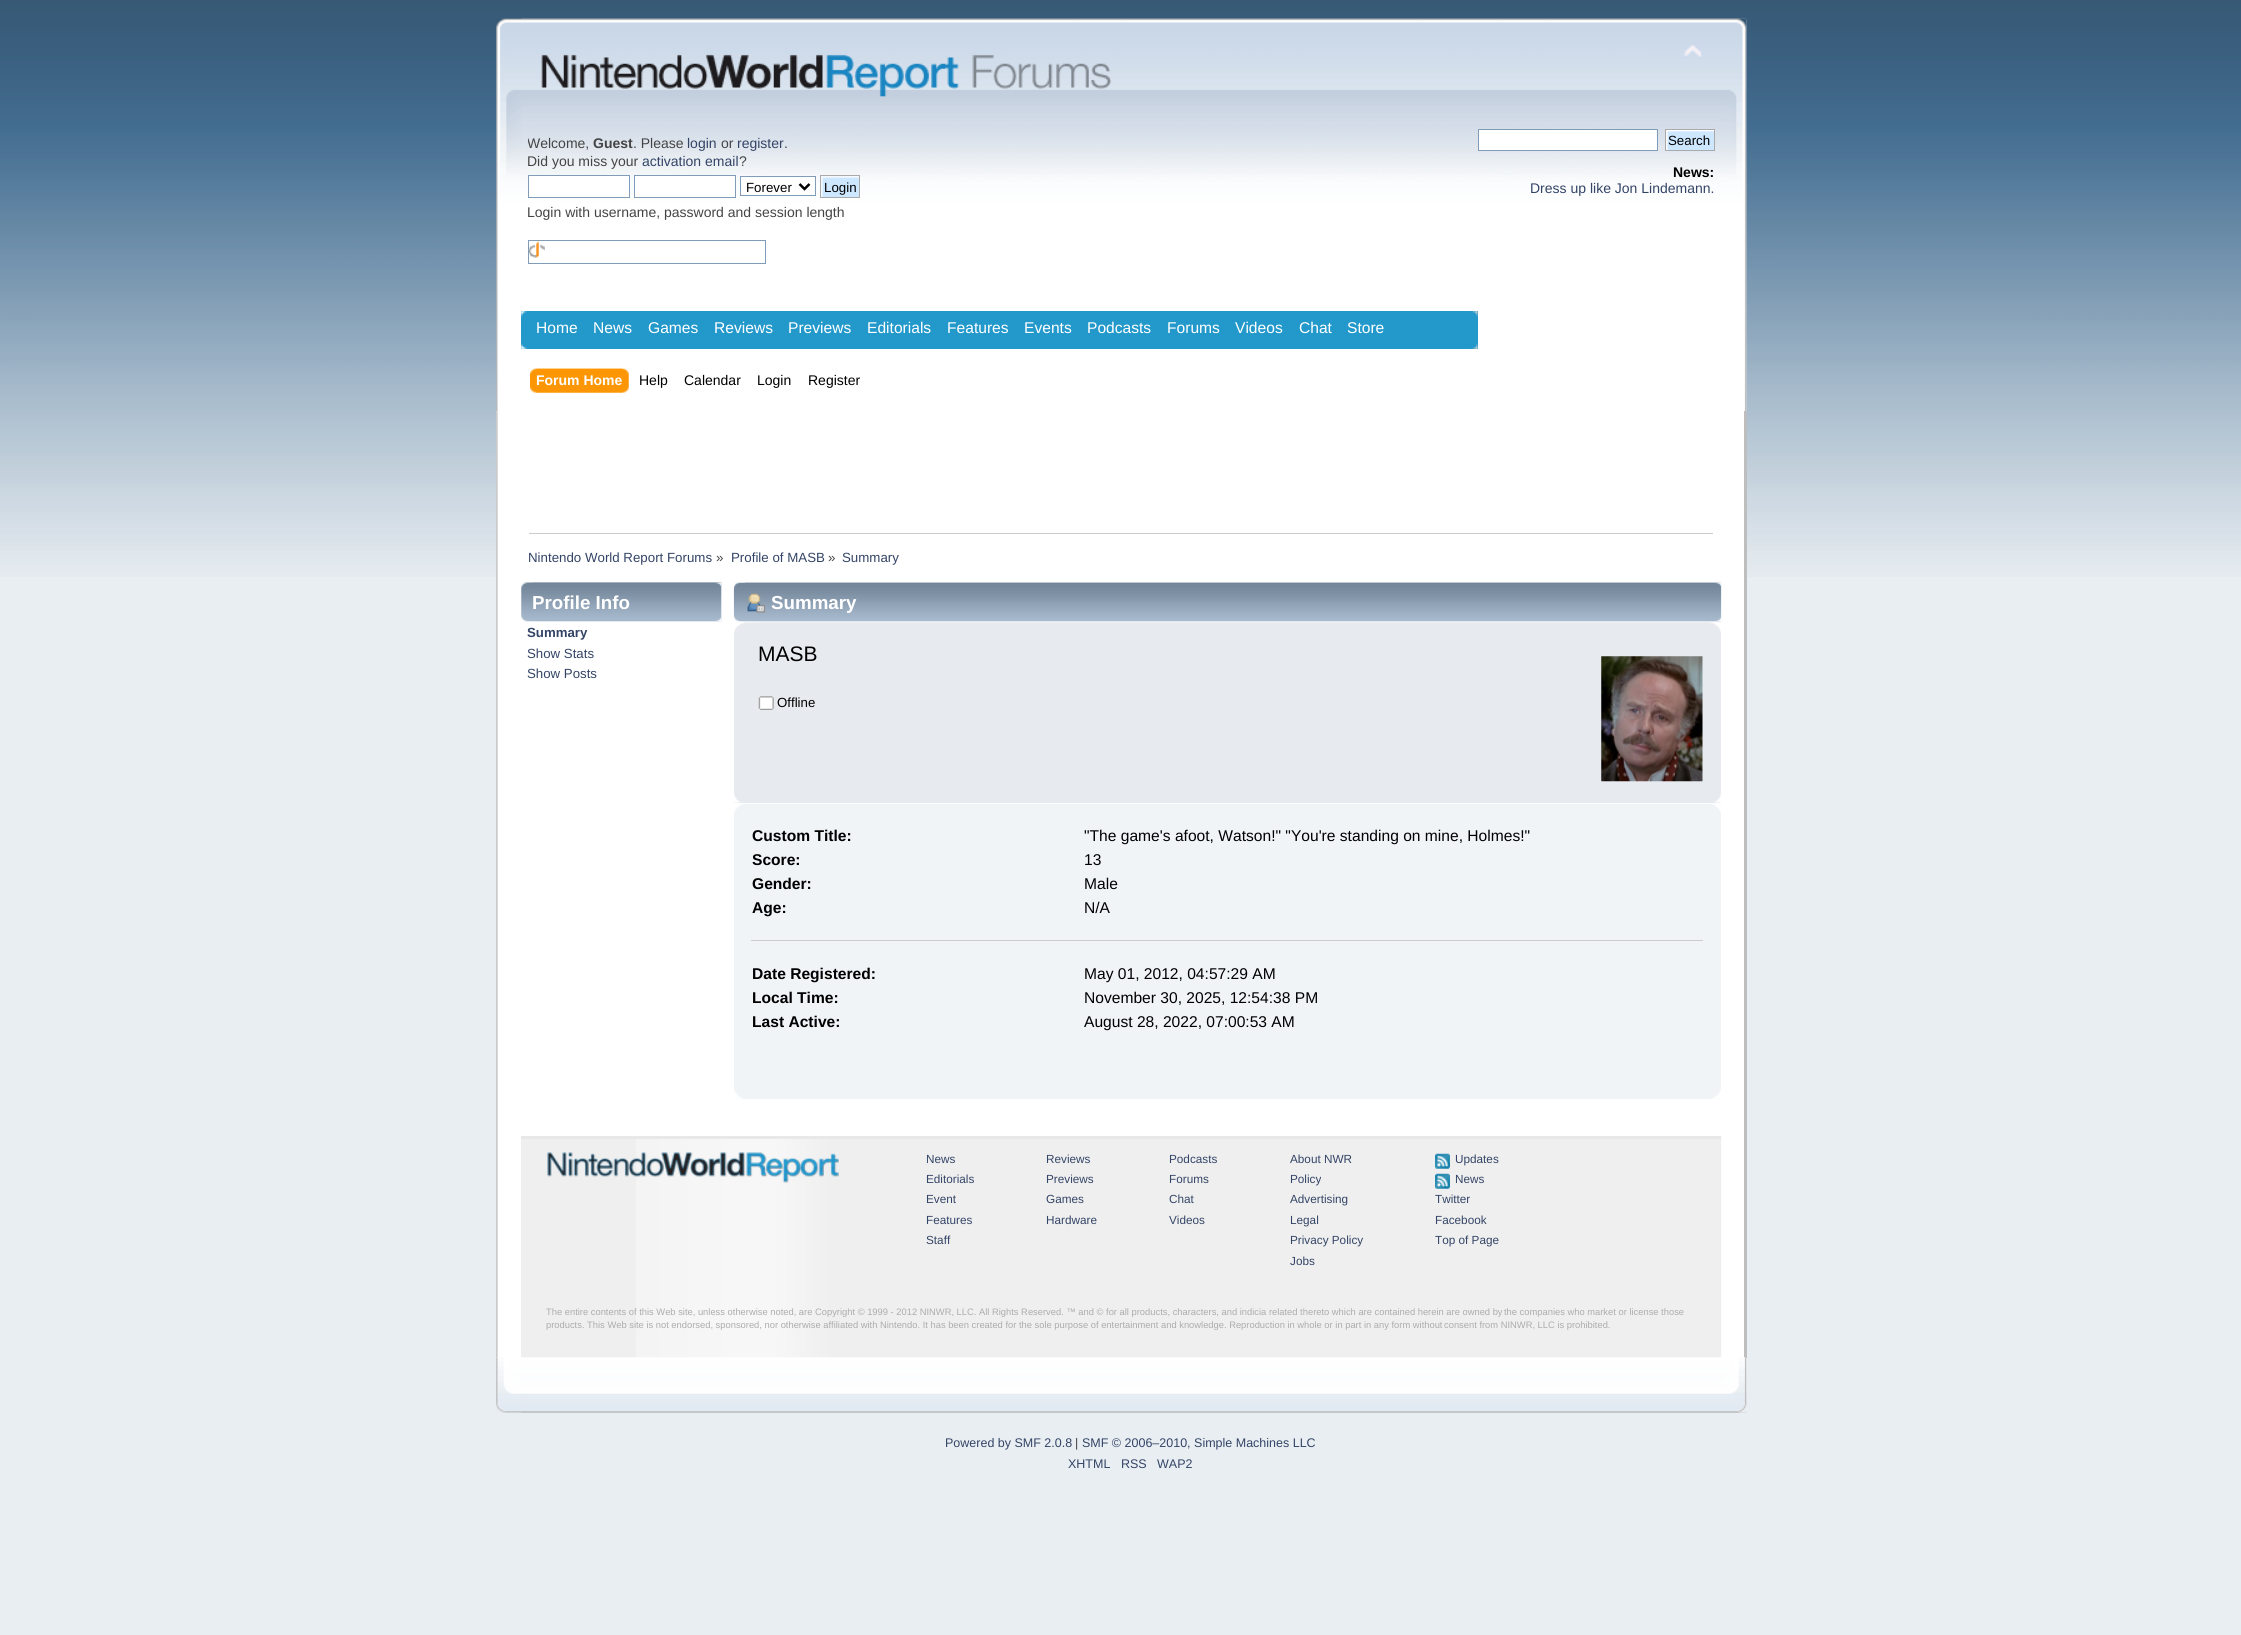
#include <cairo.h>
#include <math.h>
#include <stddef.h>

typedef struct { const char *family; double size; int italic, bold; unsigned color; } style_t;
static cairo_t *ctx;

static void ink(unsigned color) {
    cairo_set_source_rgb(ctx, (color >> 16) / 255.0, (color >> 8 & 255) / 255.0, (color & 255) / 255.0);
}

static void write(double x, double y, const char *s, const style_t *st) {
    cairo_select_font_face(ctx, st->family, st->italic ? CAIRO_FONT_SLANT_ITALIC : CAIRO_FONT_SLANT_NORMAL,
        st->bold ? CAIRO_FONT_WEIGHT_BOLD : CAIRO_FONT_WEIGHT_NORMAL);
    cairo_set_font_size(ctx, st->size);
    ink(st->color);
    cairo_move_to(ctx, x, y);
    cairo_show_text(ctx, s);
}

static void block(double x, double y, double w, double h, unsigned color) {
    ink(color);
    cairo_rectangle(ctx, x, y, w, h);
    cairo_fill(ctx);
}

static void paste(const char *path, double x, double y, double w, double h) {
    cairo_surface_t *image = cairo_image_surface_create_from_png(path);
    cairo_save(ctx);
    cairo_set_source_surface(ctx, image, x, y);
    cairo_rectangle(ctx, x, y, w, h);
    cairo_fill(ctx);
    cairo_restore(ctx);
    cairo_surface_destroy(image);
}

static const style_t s1 = {"Liberation Sans", 14, 0, 0, 0x444444};
static const style_t s2 = {"Liberation Sans", 14, 0, 1, 0x444444};
static const style_t s3 = {"Liberation Sans", 14, 0, 0, 0x334466};
static const style_t s4 = {"Liberation Sans", 13.3, 0, 0, 0x000000};
static const style_t s5 = {"Liberation Sans", 14, 0, 1, 0x000000};
static const style_t s6 = {"Liberation Sans", 15.6, 0, 0, 0xffffff};
static const style_t s7 = {"Liberation Sans", 14, 0, 1, 0xffffff};
static const style_t s8 = {"Liberation Sans", 14, 0, 0, 0x000000};
static const style_t s9 = {"Liberation Sans", 13.3, 0, 0, 0x334466};
static const style_t s10 = {"Liberation Sans", 13.3, 0, 0, 0x444444};
static const style_t s11 = {"Liberation Sans", 18.75, 0, 1, 0xffffff};
static const style_t s12 = {"Liberation Sans", 13.25, 0, 1, 0x334466};
static const style_t s13 = {"Liberation Sans", 13.25, 0, 0, 0x334466};
static const style_t s14 = {"Liberation Sans", 21, 0, 0, 0x000000};
static const style_t s15 = {"Liberation Sans", 13.25, 0, 0, 0x000000};
static const style_t s16 = {"Liberation Sans", 15.6, 0, 1, 0x000000};
static const style_t s17 = {"Liberation Sans", 15.6, 0, 0, 0x000000};
static const style_t s18 = {"Liberation Sans", 11.75, 0, 0, 0x334466};
static const style_t s19 = {"Liberation Sans", 9.36, 0, 0, 0xacacac};
static const style_t s20 = {"Liberation Sans", 12.5, 0, 0, 0x334466};
static const style_t s21 = {"Liberation Sans", 12.5, 0, 0, 0x444444};

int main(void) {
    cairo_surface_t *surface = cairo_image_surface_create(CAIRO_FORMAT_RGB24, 2241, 1635);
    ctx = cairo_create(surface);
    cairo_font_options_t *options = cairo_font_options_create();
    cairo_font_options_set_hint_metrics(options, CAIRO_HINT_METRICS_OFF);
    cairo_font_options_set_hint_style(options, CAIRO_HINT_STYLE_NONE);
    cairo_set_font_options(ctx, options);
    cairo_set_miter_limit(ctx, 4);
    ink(0xe9eef2);
    cairo_paint(ctx);
    paste("pic1.png", 0, 0, 2241, 577);
    paste("pic2.png", 496, 18, 1251, 393);
    paste("pic3.png", 521, 18, 1226, 393);
    paste("pic4.png", 1684, 44, 18, 15);
    paste("pic5.png", 541, 54, 571, 43);
    cairo_save(ctx);
    cairo_rectangle(ctx, 528, 129, 593, 135);
    cairo_clip(ctx);
    write(527, 148, "Welcome,", &s1);
    cairo_restore(ctx);
    write(593, 148, "Guest", &s2);
    write(633, 148, ". Please", &s1);
    write(687, 148, "login", &s3);
    write(721, 148, "or", &s1);
    write(737, 148, "register", &s3);
    write(784, 148, ".", &s1);
    write(527, 166, "Did you miss your", &s1);
    write(642, 166, "activation email", &s3);
    write(739, 166, "?", &s1);
    block(529, 176, 100, 18, 0xffffff);
    cairo_rectangle(ctx, 528.5, 175.5, 101, 22);
    ink(0x7f9db9);
    cairo_set_line_width(ctx, 1);
    cairo_stroke(ctx);
    block(635, 176, 100, 18, 0xffffff);
    cairo_rectangle(ctx, 634.5, 175.5, 101, 22);
    ink(0x7f9db9);
    cairo_stroke(ctx);
    block(741, 177, 74, 17, 0xffffff);
    cairo_rectangle(ctx, 740.5, 176.5, 75, 19);
    ink(0x7f9db9);
    cairo_stroke(ctx);
    cairo_new_path(ctx);
    cairo_move_to(ctx, 799.5, 184);
    cairo_line_to(ctx, 804.5, 189);
    cairo_line_to(ctx, 809.5, 184);
    ink(0x000000);
    cairo_set_line_width(ctx, 2.5);
    cairo_stroke(ctx);
    write(746, 192, "Forever", &s4);
    block(821, 176, 38, 21, 0xcde7ff);
    paste("pic6.png", 821, 176, 38, 21);
    cairo_rectangle(ctx, 820.5, 175.5, 39, 22);
    ink(0xaaaaaa);
    cairo_set_line_width(ctx, 1);
    cairo_stroke(ctx);
    write(824, 192, "Login", &s4);
    write(527, 217, "Login with username, password and session length", &s1);
    paste("pic7.png", 529, 241, 16, 17);
    cairo_rectangle(ctx, 528.5, 240.5, 237, 23);
    ink(0x7f9db9);
    cairo_stroke(ctx);
    ink(0xffffff);
    cairo_rectangle(ctx, 1478.5, 129.5, 179, 21);
    cairo_fill_preserve(ctx);
    ink(0x7f9db9);
    cairo_stroke(ctx);
    paste("pic8.png", 1666, 130, 49, 22);
    cairo_rectangle(ctx, 1665.5, 129.5, 49, 21);
    ink(0xaaaaaa);
    cairo_stroke(ctx);
    write(1668, 145, "Search", &s4);
    write(1673, 177, "News:", &s5);
    write(1530, 193, "Dress up like Jon Lindemann.", &s3);
    block(521, 311, 957, 38, 0x2399cb);
    paste("pic9.png", 521, 343, 957, 6);
    paste("pic10.png", 521, 311, 957, 6);
    write(536, 333, "Home", &s6);
    write(593, 333, "News", &s6);
    write(648, 333, "Games", &s6);
    write(714, 333, "Reviews", &s6);
    write(788, 333, "Previews", &s6);
    write(867, 333, "Editorials", &s6);
    write(947, 333, "Features", &s6);
    write(1024, 333, "Events", &s6);
    write(1087, 333, "Podcasts", &s6);
    write(1167, 333, "Forums", &s6);
    write(1235, 333, "Videos", &s6);
    write(1299, 333, "Chat", &s6);
    write(1347, 333, "Store", &s6);
    paste("pic11.png", 536, 368, 93, 25);
    paste("pic12.png", 530, 368, 93, 25);
    write(536, 385, "Forum Home", &s7);
    write(639, 385, "Help", &s8);
    write(684, 385, "Calendar", &s8);
    write(757, 385, "Login", &s8);
    write(808, 385, "Register", &s8);
    block(496, 411, 1248, 947, 0xffffff);
    paste("pic13.png", 496, 411, 1248, 947);
    block(1744, 411, 3, 947, 0xbebebe);
    block(529, 533, 1184, 1, 0xcccccc);
    write(528, 562, "Nintendo World Report Forums", &s9);
    write(716, 562, "»", &s10);
    write(731, 562, "Profile of MASB", &s9);
    write(828, 562, "»", &s10);
    write(842, 562, "Summary", &s9);
    paste("pic14.png", 521, 582, 201, 40);
    paste("pic15.png", 532, 582, 190, 40);
    write(532, 609, "Profile Info", &s11);
    write(527, 637, "Summary", &s12);
    write(527, 658, "Show Stats", &s13);
    write(527, 678, "Show Posts", &s13);
    paste("pic16.png", 733, 582, 989, 40);
    paste("pic17.png", 745, 582, 977, 40);
    paste("pic18.png", 747, 593, 18, 20);
    write(771, 609, "Summary", &s11);
    block(734, 633, 987, 170, 0xe7eaef);
    paste("pic19.png", 734, 622, 987, 11);
    paste("pic20.png", 759, 622, 962, 10);
    write(758, 661, "MASB", &s14);
    paste("pic21.png", 758, 696, 16, 14);
    write(777, 707, "Offline", &s15);
    paste("pic22.png", 1601, 656, 102, 126);
    paste("pic23.png", 734, 793, 6, 10);
    paste("pic24.png", 1715, 793, 6, 10);
    block(734, 813, 987, 286, 0xf0f4f7);
    paste("pic25.png", 734, 803, 987, 10);
    paste("pic26.png", 1712, 804, 9, 9);
    block(751, 940, 952, 1, 0xcccccc);
    write(752, 841, "Custom Title:", &s16);
    write(1084, 841, "\"The game's afoot, Watson!\" \"You're standing on mine, Holmes!\"", &s17);
    write(752, 865, "Score:", &s16);
    write(1084, 865, "13", &s17);
    write(752, 889, "Gender:", &s16);
    write(1084, 889, "Male", &s17);
    write(752, 913, "Age:", &s16);
    write(1084, 913, "N/A", &s17);
    write(752, 979, "Date Registered:", &s16);
    write(1084, 979, "May 01, 2012, 04:57:29 AM", &s17);
    write(752, 1003, "Local Time:", &s16);
    write(1084, 1003, "November 30, 2025, 12:54:38 PM", &s17);
    write(752, 1027, "Last Active:", &s16);
    write(1084, 1027, "August 28, 2022, 07:00:53 AM", &s17);
    paste("pic27.png", 734, 1089, 9, 10);
    paste("pic28.png", 1712, 1089, 9, 10);
    block(521, 1139, 1200, 219, 0xefefef);
    paste("pic29.png", 636, 1136, 1086, 222);
    block(521, 1136, 1200, 3, 0xe8e8e8);
    paste("pic30.png", 547, 1152, 292, 31);
    write(926, 1163, "News", &s18);
    write(926, 1183, "Editorials", &s18);
    write(926, 1203, "Event", &s18);
    write(926, 1224, "Features", &s18);
    write(926, 1244, "Staff", &s18);
    write(1046, 1163, "Reviews", &s18);
    write(1046, 1183, "Previews", &s18);
    write(1046, 1203, "Games", &s18);
    write(1046, 1224, "Hardware", &s18);
    write(1169, 1163, "Podcasts", &s18);
    write(1169, 1183, "Forums", &s18);
    write(1169, 1203, "Chat", &s18);
    write(1169, 1224, "Videos", &s18);
    write(1290, 1163, "About NWR", &s18);
    write(1290, 1183, "Policy", &s18);
    write(1290, 1203, "Advertising", &s18);
    write(1290, 1224, "Legal", &s18);
    write(1290, 1244, "Privacy Policy", &s18);
    write(1290, 1265, "Jobs", &s18);
    paste("pic31.png", 1435, 1153, 15, 16);
    write(1455, 1163, "Updates", &s18);
    paste("pic32.png", 1435, 1173, 15, 16);
    write(1455, 1183, "News", &s18);
    write(1435, 1203, "Twitter", &s18);
    write(1435, 1224, "Facebook", &s18);
    write(1435, 1244, "Top of Page", &s18);
    write(546, 1315, "The entire contents of this Web site, unless otherwise noted, are Copyright © 1999 - 2012 NINWR, LLC. All Rights Reserved. ™ and © for all products, characters, and indicia related thereto which are contained herein are owned by", &s19);
    write(1504, 1315, "the companies who market or license those", &s19);
    write(546, 1328, "products. This Web site is not endorsed, sponsored, nor otherwise affiliated with Nintendo. It has been created for the sole purpose of entertainment and knowledge. Reproduction in whole or in part in any form without", &s19);
    write(1444, 1328, "consent from NINWR, LLC is prohibited.", &s19);
    paste("pic33.png", 496, 1357, 1251, 56);
    paste("pic34.png", 521, 1357, 1226, 56);
    write(945, 1447, "Powered by SMF 2.0.8", &s20);
    write(1075, 1447, "|", &s21);
    write(1082, 1447, "SMF © 2006–2010, Simple Machines LLC", &s20);
    write(1068, 1468, "XHTML", &s20);
    write(1121, 1468, "RSS", &s20);
    write(1157, 1468, "WAP2", &s20);
    cairo_surface_write_to_png(surface, "screenshot.png");
    cairo_font_options_destroy(options);
    cairo_destroy(ctx);
    cairo_surface_destroy(surface);
    return 0;
}
